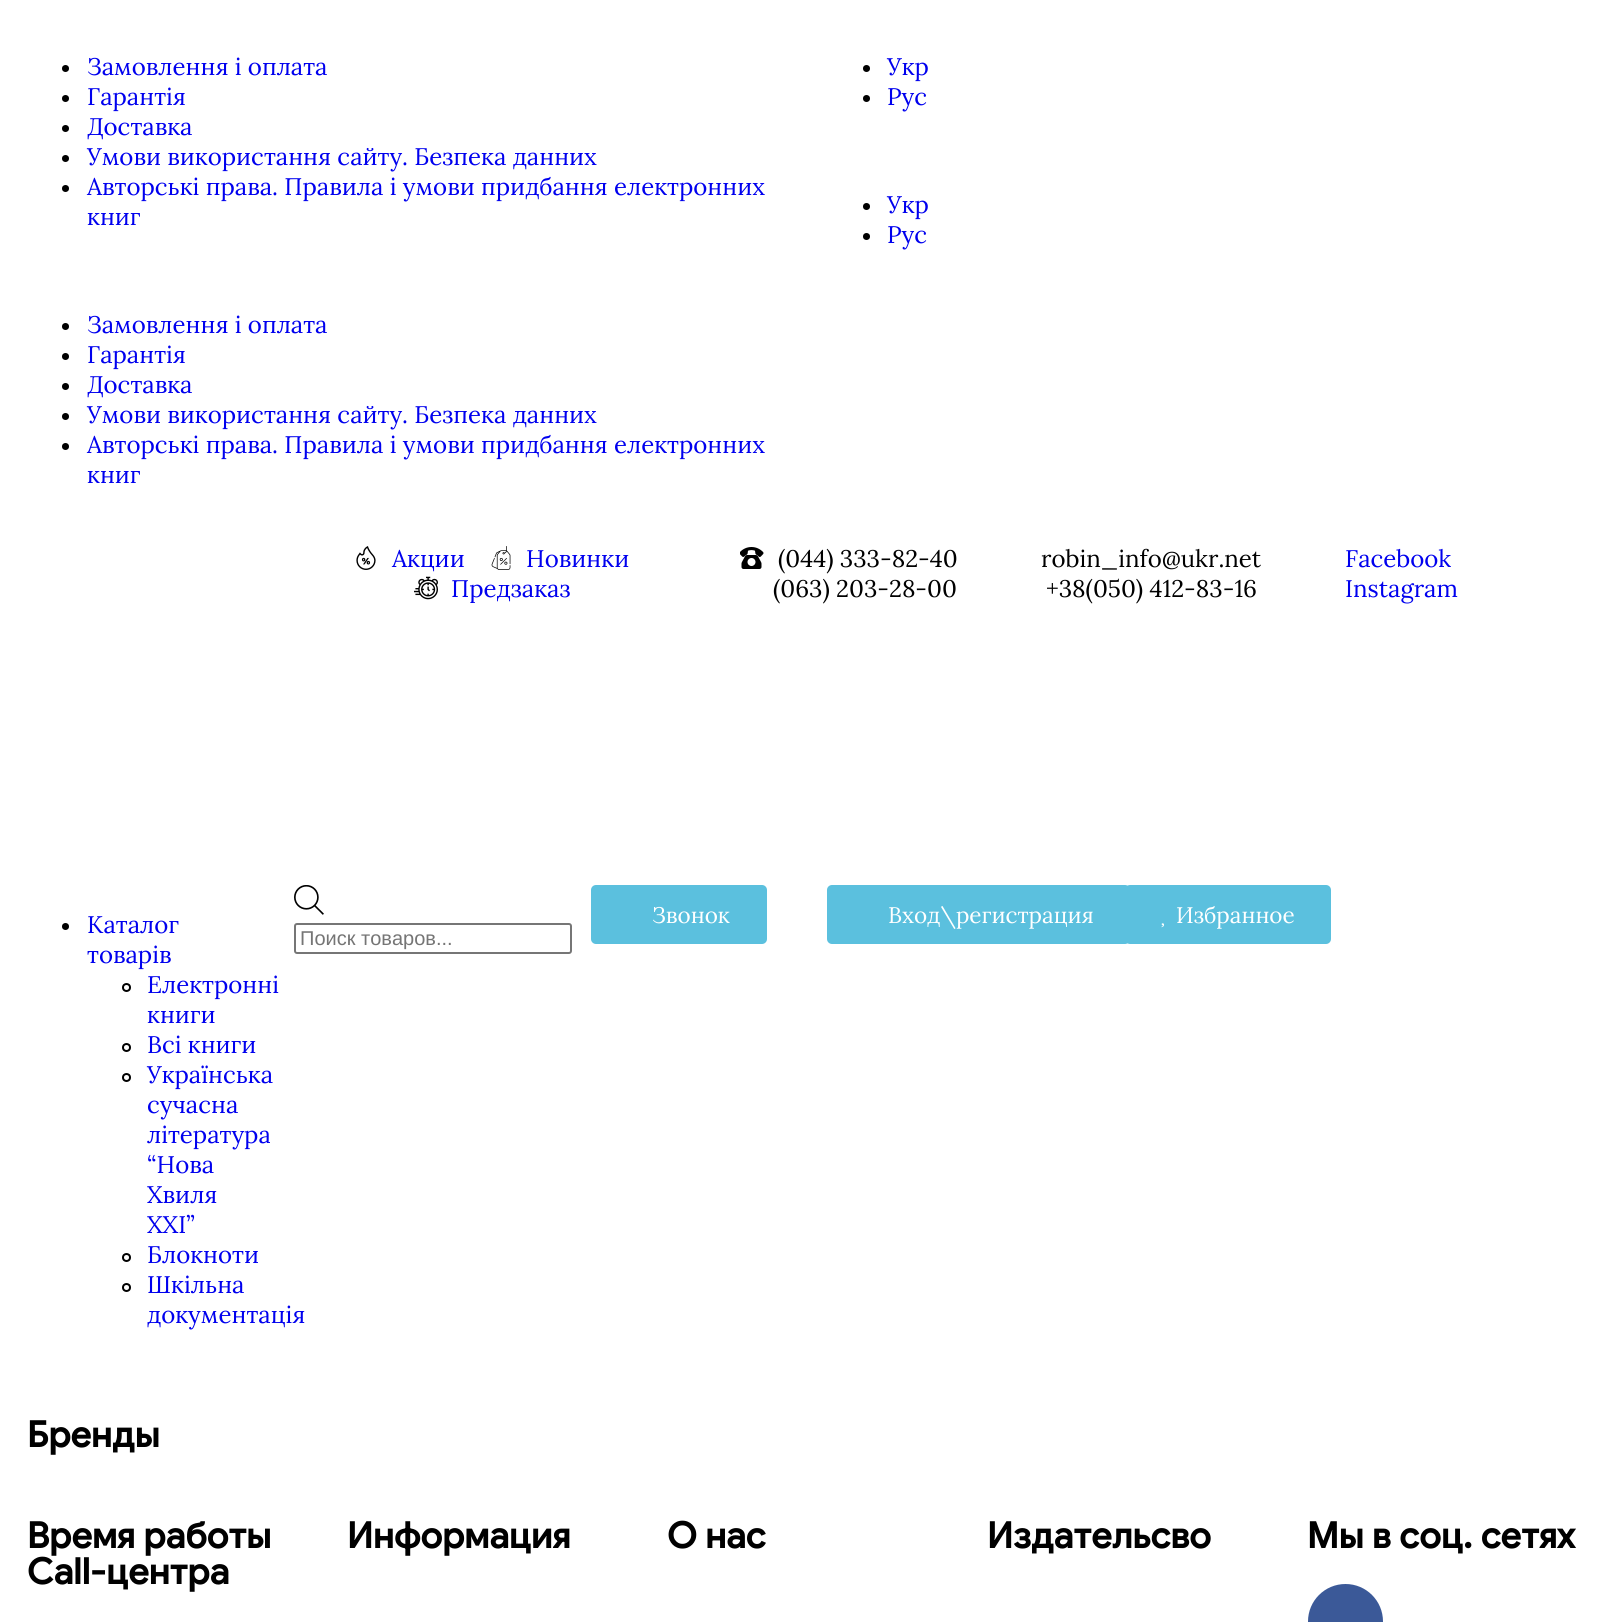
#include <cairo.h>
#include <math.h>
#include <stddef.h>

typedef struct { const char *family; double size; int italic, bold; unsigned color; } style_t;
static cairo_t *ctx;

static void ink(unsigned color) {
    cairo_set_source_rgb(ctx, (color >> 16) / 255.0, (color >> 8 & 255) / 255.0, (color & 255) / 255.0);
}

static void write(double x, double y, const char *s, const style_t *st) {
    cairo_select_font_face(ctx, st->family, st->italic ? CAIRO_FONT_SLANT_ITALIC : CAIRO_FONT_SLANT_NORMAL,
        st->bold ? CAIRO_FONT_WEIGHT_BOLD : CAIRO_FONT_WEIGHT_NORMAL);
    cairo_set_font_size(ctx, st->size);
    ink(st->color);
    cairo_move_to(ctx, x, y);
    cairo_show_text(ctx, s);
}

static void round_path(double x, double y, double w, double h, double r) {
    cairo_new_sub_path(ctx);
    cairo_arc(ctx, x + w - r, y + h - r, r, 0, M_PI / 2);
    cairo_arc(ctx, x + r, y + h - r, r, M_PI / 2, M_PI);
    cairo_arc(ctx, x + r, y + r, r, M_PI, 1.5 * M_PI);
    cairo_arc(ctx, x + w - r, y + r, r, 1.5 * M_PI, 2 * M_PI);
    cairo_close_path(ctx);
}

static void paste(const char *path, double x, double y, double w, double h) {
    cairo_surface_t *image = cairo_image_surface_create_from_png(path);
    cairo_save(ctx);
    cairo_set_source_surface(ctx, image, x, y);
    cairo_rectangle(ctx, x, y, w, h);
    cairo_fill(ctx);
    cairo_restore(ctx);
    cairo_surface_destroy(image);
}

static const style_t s1 = {"Lora", 24, 0, 0, 0x0000ee};
static const style_t s2 = {"Lora", 24, 0, 0, 0x000000};
static const style_t s3 = {"Liberation Sans", 20, 0, 0, 0x757575};
static const style_t s4 = {"Lora", 22.5, 0, 0, 0xffffff};
static const style_t s5 = {"Google Sans", 36, 0, 1, 0x000000};

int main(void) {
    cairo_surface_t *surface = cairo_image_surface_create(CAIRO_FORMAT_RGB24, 1624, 1622);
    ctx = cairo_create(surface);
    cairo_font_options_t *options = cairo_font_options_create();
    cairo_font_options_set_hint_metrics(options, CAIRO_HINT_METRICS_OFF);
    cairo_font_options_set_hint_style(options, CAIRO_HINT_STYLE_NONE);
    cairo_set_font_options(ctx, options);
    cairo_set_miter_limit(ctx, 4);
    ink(0xffffff);
    cairo_paint(ctx);
    ink(0x000000);
    cairo_arc(ctx, 65.5, 68.5, 3.5, 0, 2 * M_PI);
    cairo_fill(ctx);
    write(87, 75, "Замовлення і оплата", &s1);
    ink(0x000000);
    cairo_new_path(ctx);
    cairo_arc(ctx, 65.5, 98.5, 3.5, 0, 2 * M_PI);
    cairo_fill(ctx);
    write(87, 105, "Гарантія", &s1);
    ink(0x000000);
    cairo_new_path(ctx);
    cairo_arc(ctx, 65.5, 128.5, 3.5, 0, 2 * M_PI);
    cairo_fill(ctx);
    write(87, 135, "Доставка", &s1);
    ink(0x000000);
    cairo_new_path(ctx);
    cairo_arc(ctx, 65.5, 158.5, 3.5, 0, 2 * M_PI);
    cairo_fill(ctx);
    write(87, 165, "Умови використання сайту. Безпека данних", &s1);
    ink(0x000000);
    cairo_new_path(ctx);
    cairo_arc(ctx, 65.5, 188.5, 3.5, 0, 2 * M_PI);
    cairo_fill(ctx);
    write(87, 195, "Авторські права. Правила і умови придбання електронних", &s1);
    write(87, 225, "книг", &s1);
    ink(0x000000);
    cairo_new_path(ctx);
    cairo_arc(ctx, 65.5, 326.5, 3.5, 0, 2 * M_PI);
    cairo_fill(ctx);
    write(87, 333, "Замовлення і оплата", &s1);
    ink(0x000000);
    cairo_new_path(ctx);
    cairo_arc(ctx, 65.5, 356.5, 3.5, 0, 2 * M_PI);
    cairo_fill(ctx);
    write(87, 363, "Гарантія", &s1);
    ink(0x000000);
    cairo_new_path(ctx);
    cairo_arc(ctx, 65.5, 386.5, 3.5, 0, 2 * M_PI);
    cairo_fill(ctx);
    write(87, 393, "Доставка", &s1);
    ink(0x000000);
    cairo_new_path(ctx);
    cairo_arc(ctx, 65.5, 416.5, 3.5, 0, 2 * M_PI);
    cairo_fill(ctx);
    write(87, 423, "Умови використання сайту. Безпека данних", &s1);
    ink(0x000000);
    cairo_new_path(ctx);
    cairo_arc(ctx, 65.5, 446.5, 3.5, 0, 2 * M_PI);
    cairo_fill(ctx);
    write(87, 453, "Авторські права. Правила і умови придбання електронних", &s1);
    write(87, 483, "книг", &s1);
    ink(0x000000);
    cairo_new_path(ctx);
    cairo_arc(ctx, 866.5, 68.5, 3.5, 0, 2 * M_PI);
    cairo_fill(ctx);
    write(887, 75, "Укр", &s1);
    ink(0x000000);
    cairo_new_path(ctx);
    cairo_arc(ctx, 866.5, 98.5, 3.5, 0, 2 * M_PI);
    cairo_fill(ctx);
    write(887, 105, "Рус", &s1);
    ink(0x000000);
    cairo_new_path(ctx);
    cairo_arc(ctx, 866.5, 206.5, 3.5, 0, 2 * M_PI);
    cairo_fill(ctx);
    write(887, 213, "Укр", &s1);
    ink(0x000000);
    cairo_new_path(ctx);
    cairo_arc(ctx, 866.5, 236.5, 3.5, 0, 2 * M_PI);
    cairo_fill(ctx);
    write(887, 243, "Рус", &s1);
    paste("pic1.png", 356, 546, 20, 24);
    write(392, 567, "Акции", &s1);
    paste("pic2.png", 491, 546, 20, 24);
    write(526, 567, "Новинки", &s1);
    paste("pic3.png", 414, 576, 24, 24);
    cairo_save(ctx);
    cairo_rectangle(ctx, 347, 543, 291, 60);
    cairo_clip(ctx);
    write(451, 597, "Предзаказ", &s1);
    cairo_restore(ctx);
    paste("pic4.png", 740, 547, 24, 22);
    write(778, 567, "(044) 333-82-40", &s2);
    write(773, 597, "(063) 203-28-00", &s2);
    write(1041, 567, "robin_info@ukr.net", &s2);
    write(1046, 597, "+38(050) 412-83-16", &s2);
    write(1345, 567, "Facebook", &s1);
    write(1345, 597, "Instagram", &s1);
    ink(0x000000);
    cairo_new_path(ctx);
    cairo_arc(ctx, 65.5, 926.5, 3.5, 0, 2 * M_PI);
    cairo_fill(ctx);
    write(87, 933, "Каталог", &s1);
    write(87, 963, "товарів", &s1);
    cairo_new_path(ctx);
    cairo_arc(ctx, 126.5, 987.5, 3.5, 0, 2 * M_PI);
    ink(0x000000);
    cairo_stroke(ctx);
    write(147, 993, "Електронні", &s1);
    write(147, 1023, "книги", &s1);
    cairo_new_path(ctx);
    cairo_arc(ctx, 126.5, 1047.5, 3.5, 0, 2 * M_PI);
    ink(0x000000);
    cairo_stroke(ctx);
    write(147, 1053, "Всі книги", &s1);
    cairo_new_path(ctx);
    cairo_arc(ctx, 126.5, 1077.5, 3.5, 0, 2 * M_PI);
    ink(0x000000);
    cairo_stroke(ctx);
    write(147, 1083, "Українська", &s1);
    write(147, 1113, "сучасна", &s1);
    write(147, 1143, "література", &s1);
    write(147, 1173, "“Нова", &s1);
    write(147, 1203, "Хвиля", &s1);
    write(147, 1233, "ХХІ”", &s1);
    cairo_new_path(ctx);
    cairo_arc(ctx, 126.5, 1257.5, 3.5, 0, 2 * M_PI);
    ink(0x000000);
    cairo_stroke(ctx);
    write(147, 1263, "Блокноти", &s1);
    cairo_new_path(ctx);
    cairo_arc(ctx, 126.5, 1287.5, 3.5, 0, 2 * M_PI);
    ink(0x000000);
    cairo_stroke(ctx);
    write(147, 1293, "Шкільна", &s1);
    write(147, 1323, "документація", &s1);
    paste("pic5.png", 294, 885, 30, 30);
    round_path(295, 924, 276, 29, 2);
    ink(0x767676);
    cairo_stroke(ctx);
    write(300, 945, "Поиск товаров...", &s3);
    ink(0x5bc0de);
    round_path(591, 885, 176, 59, 5);
    cairo_fill(ctx);
    write(652, 923, "Звонок", &s4);
    ink(0x5bc0de);
    round_path(827, 885, 303, 59, 5);
    cairo_fill(ctx);
    write(888, 923, "Вход\\регистрация", &s4);
    ink(0x5bc0de);
    round_path(1125, 885, 206, 59, 5);
    cairo_fill(ctx);
    paste("pic6.png", 1161, 923, 3, 5);
    write(1176, 923, "Избранное", &s4);
    write(27, 1447, "Бренды", &s5);
    write(27, 1548, "Время работы", &s5);
    write(27, 1584, "Call-центра", &s5);
    write(347, 1548, "Информация", &s5);
    write(667, 1548, "О нас", &s5);
    write(987, 1548, "Издательсво", &s5);
    write(1307, 1548, "Мы в соц. сетях", &s5);
    ink(0x3b5998);
    cairo_new_path(ctx);
    cairo_arc(ctx, 1345.5, 1621.5, 37.5, 0, 2 * M_PI);
    cairo_fill(ctx);
    cairo_surface_write_to_png(surface, "screenshot.png");
    cairo_font_options_destroy(options);
    cairo_destroy(ctx);
    cairo_surface_destroy(surface);
    return 0;
}
